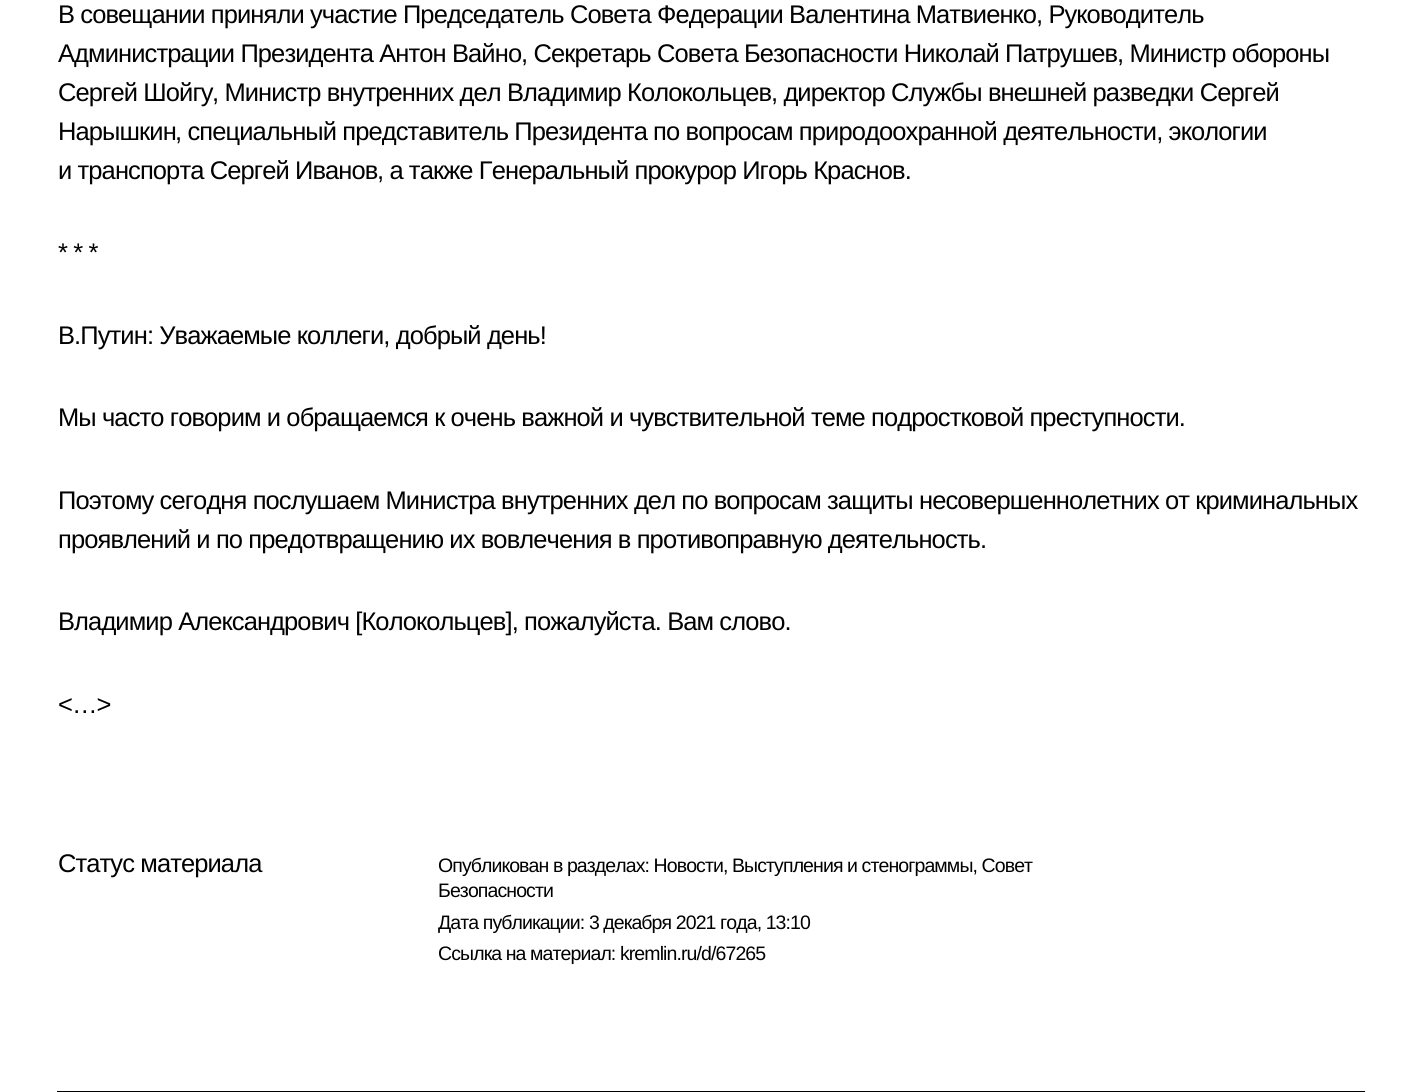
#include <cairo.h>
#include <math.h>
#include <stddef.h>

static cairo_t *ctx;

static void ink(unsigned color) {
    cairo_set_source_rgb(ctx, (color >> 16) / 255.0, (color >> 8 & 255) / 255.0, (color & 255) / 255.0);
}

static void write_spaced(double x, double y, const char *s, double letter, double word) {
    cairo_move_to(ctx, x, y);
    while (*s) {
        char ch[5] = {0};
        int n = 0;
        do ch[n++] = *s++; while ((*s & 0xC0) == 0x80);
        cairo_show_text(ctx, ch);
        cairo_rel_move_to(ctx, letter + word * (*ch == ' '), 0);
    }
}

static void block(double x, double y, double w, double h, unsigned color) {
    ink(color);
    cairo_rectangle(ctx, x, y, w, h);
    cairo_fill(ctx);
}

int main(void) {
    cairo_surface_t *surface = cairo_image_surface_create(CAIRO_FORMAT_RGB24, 1422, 1092);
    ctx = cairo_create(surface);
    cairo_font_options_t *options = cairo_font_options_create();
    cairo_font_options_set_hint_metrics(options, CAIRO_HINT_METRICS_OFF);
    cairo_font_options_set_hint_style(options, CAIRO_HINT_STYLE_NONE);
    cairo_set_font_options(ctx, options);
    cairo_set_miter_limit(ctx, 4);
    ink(0xffffff);
    cairo_paint(ctx);
    block(57, 1091, 1308, 1, 0x000000);
    cairo_select_font_face(ctx, "Liberation Sans", CAIRO_FONT_SLANT_NORMAL, CAIRO_FONT_WEIGHT_NORMAL);
    cairo_set_font_size(ctx, 25.5);
    write_spaced(58, 23, "В совещании приняли участие Председатель Совета Федерации Валентина Матвиенко", -0.9, 0);
    write_spaced(1036, 23, ", Руководитель", -0.9, 0);
    write_spaced(58, 62, "Администрации Президента Антон Вайно", -0.9, 0);
    write_spaced(521, 62, ", Секретарь Совета Безопасности Николай Патрушев", -0.9, 0);
    write_spaced(1117, 62, ", Министр обороны", -0.9, 0);
    write_spaced(58, 101, "Сергей Шойгу", -0.9, 0);
    write_spaced(212, 101, ", Министр внутренних дел Владимир Колокольцев", -0.9, 0);
    write_spaced(771, 101, ", директор Службы внешней разведки Сергей", -0.9, 0);
    write_spaced(58, 140, "Нарышкин", -0.9, 0);
    write_spaced(175, 140, ", специальный представитель Президента по вопросам природоохранной деятельности, экологии", -0.9, 0);
    write_spaced(58, 179, "и транспорта Сергей Иванов", -0.9, 0);
    write_spaced(377, 179, ", а также Генеральный прокурор Игорь Краснов.", -0.9, 0);
    write_spaced(58, 261, "* * *", -0.9, 0);
    write_spaced(58, 344, "В.Путин: Уважаемые коллеги, добрый день!", -0.9, 0);
    write_spaced(58, 426, "Мы часто говорим и обращаемся к очень важной и чувствительной теме подростковой преступности.", -0.9, 0);
    write_spaced(58, 509, "Поэтому сегодня послушаем Министра внутренних дел по вопросам защиты несовершеннолетних от криминальных", -0.9, 0);
    write_spaced(58, 548, "проявлений и по предотвращению их вовлечения в противоправную деятельность.", -0.9, 0);
    write_spaced(58, 630, "Владимир Александрович [Колокольцев], пожалуйста. Вам слово.", -0.9, 0);
    write_spaced(58, 713, "<…>", -0.9, 0);
    write_spaced(58, 872, "Статус материала", -0.9, 0);
    cairo_set_font_size(ctx, 19.5);
    write_spaced(438, 872, "Опубликован в разделах: Новости, Выступления и стенограммы, Совет", -0.9, 0);
    write_spaced(438, 897, "Безопасности", -0.9, 0);
    write_spaced(438, 929, "Дата публикации: 3 декабря 2021 года, 13:10", -0.9, 0);
    write_spaced(438, 960, "Ссылка на материал: kremlin.ru/d/67265", -0.9, 0);
    cairo_surface_write_to_png(surface, "screenshot.png");
    cairo_font_options_destroy(options);
    cairo_destroy(ctx);
    cairo_surface_destroy(surface);
    return 0;
}
